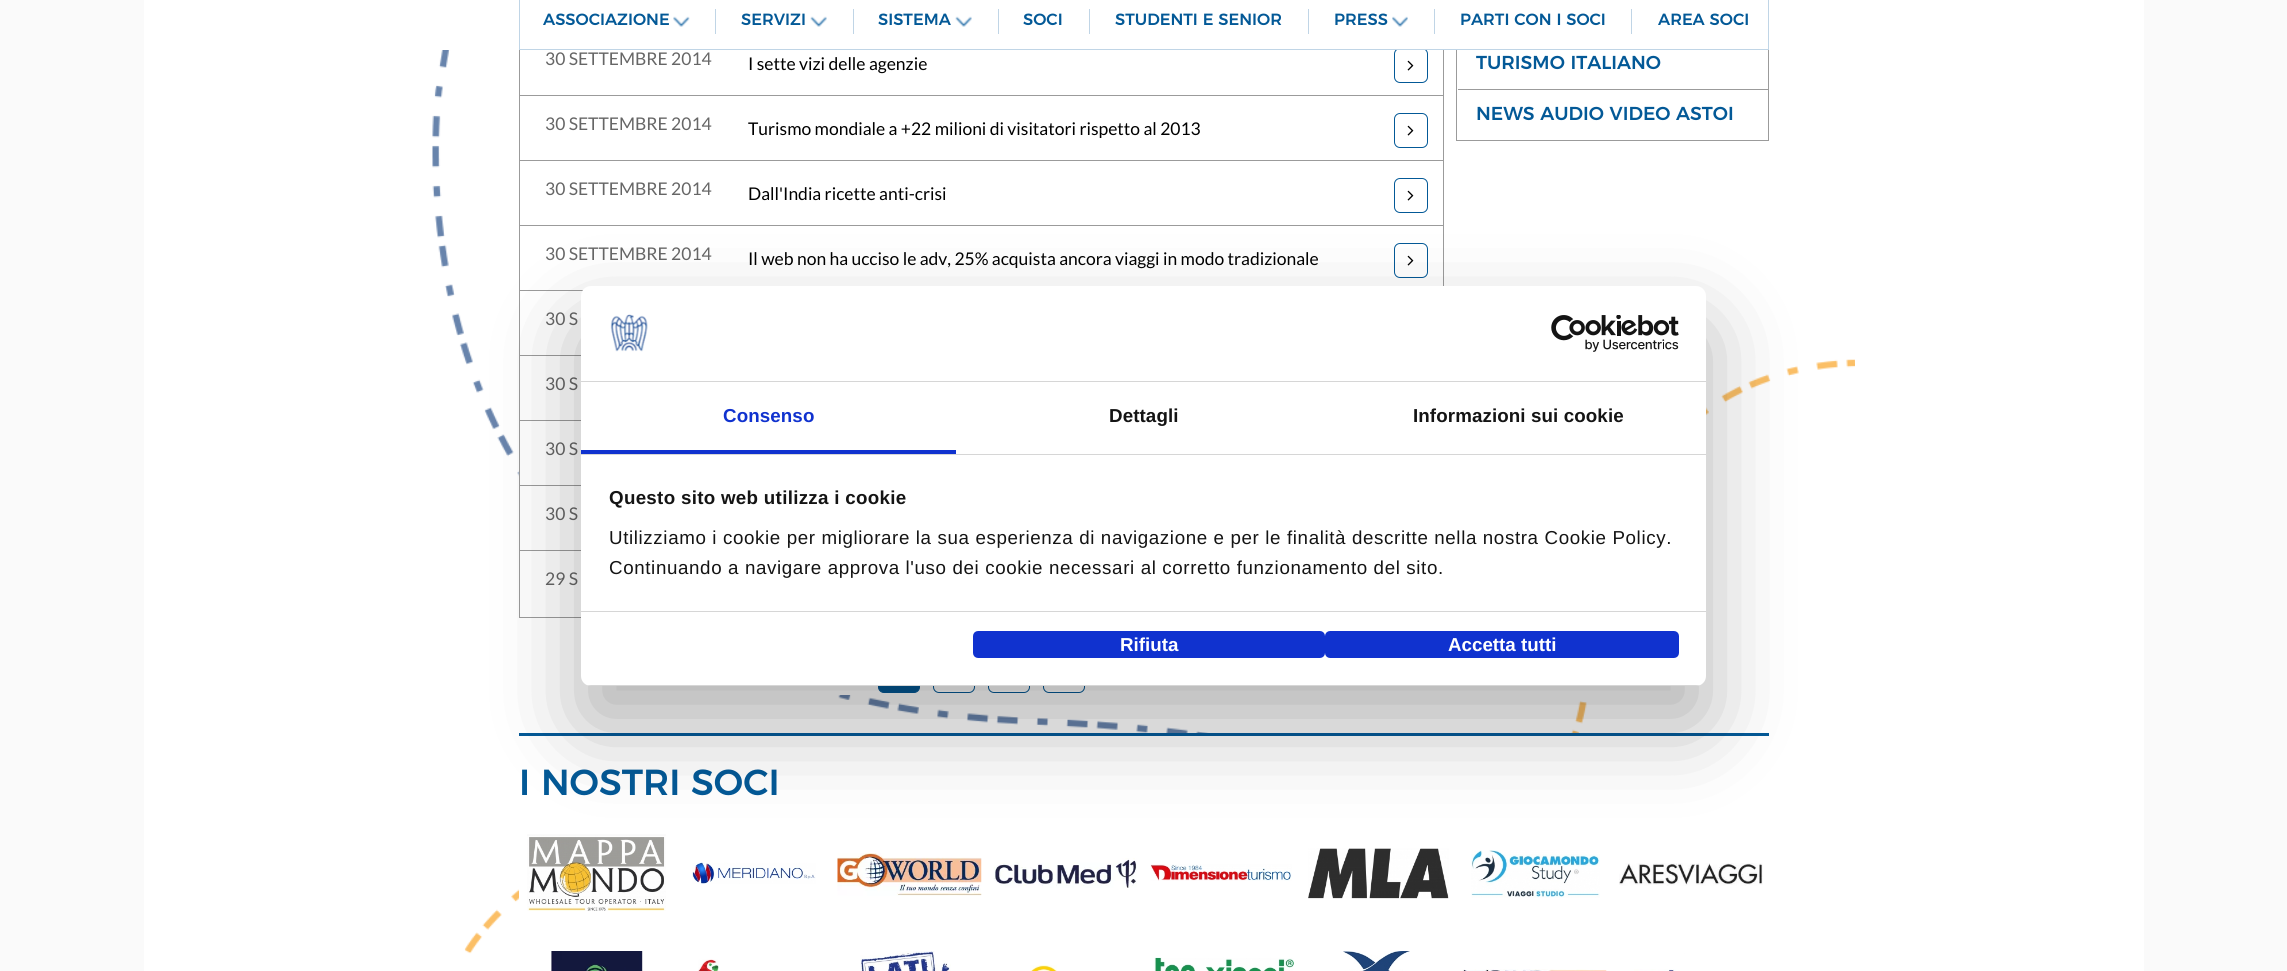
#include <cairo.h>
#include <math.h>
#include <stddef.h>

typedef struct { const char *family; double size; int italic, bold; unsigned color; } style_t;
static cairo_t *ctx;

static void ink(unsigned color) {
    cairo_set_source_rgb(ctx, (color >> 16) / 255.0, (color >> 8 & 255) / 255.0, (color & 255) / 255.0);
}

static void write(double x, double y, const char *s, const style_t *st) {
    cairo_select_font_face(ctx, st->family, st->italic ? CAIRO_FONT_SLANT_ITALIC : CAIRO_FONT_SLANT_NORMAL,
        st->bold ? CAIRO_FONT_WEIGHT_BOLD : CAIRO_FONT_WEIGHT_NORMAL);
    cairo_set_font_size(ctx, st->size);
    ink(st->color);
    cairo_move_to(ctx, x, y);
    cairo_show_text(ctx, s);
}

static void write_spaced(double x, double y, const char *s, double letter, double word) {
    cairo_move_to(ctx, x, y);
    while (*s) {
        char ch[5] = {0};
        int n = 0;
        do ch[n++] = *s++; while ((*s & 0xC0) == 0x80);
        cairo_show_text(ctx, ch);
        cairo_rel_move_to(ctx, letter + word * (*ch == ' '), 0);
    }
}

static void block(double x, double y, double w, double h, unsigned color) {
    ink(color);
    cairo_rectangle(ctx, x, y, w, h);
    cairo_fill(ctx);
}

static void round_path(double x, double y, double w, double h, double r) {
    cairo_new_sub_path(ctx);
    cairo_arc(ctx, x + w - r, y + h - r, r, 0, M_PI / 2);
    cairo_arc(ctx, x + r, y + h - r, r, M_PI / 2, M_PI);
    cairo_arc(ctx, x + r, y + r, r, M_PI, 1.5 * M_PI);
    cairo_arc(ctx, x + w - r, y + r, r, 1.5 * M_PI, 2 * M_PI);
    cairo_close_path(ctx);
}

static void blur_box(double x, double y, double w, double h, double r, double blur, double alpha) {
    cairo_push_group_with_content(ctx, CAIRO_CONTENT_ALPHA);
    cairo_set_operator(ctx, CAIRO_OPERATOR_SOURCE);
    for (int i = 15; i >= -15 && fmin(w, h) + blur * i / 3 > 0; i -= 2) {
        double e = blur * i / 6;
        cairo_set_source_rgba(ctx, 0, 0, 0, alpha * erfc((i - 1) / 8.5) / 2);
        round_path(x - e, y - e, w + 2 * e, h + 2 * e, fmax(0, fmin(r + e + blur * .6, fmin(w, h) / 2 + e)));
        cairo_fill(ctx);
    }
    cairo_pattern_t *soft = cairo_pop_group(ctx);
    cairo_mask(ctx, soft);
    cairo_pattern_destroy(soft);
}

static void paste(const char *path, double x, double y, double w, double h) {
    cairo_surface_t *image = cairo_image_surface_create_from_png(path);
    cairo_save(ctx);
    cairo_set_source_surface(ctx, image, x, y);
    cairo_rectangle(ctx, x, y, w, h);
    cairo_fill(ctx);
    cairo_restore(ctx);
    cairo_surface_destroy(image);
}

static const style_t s1 = {"Montserrat Medium", 16.25, 0, 0, 0x035997};
static const style_t s2 = {"Lato", 17.5, 0, 0, 0x666666};
static const style_t s3 = {"Lato", 17.5, 0, 0, 0x000000};
static const style_t s4 = {"Montserrat Medium", 18.75, 0, 0, 0x035997};
static const style_t s5 = {"Montserrat Medium", 36.25, 0, 0, 0x035997};
static const style_t s6 = {"Liberation Sans", 18.75, 0, 1, 0xffffff};

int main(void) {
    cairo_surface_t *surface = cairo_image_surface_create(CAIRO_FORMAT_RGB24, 2287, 971);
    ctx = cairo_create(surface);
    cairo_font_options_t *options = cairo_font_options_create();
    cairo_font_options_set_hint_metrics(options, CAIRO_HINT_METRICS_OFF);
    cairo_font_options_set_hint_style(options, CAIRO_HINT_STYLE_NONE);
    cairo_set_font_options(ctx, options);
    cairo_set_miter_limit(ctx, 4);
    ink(0xfafafa);
    cairo_paint(ctx);
    block(144, 50, 2000, 921, 0xffffff);
    paste("pic4.png", 432, 50, 1423, 904);
    block(519, 468, 333, 227, 0xffffff);
    cairo_rectangle(ctx, 519.5, -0.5, 924, 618);
    ink(0x9b9b9b);
    cairo_set_line_width(ctx, 1);
    cairo_stroke(ctx);
    round_path(1394.5, 48.5, 33, 34, 5.5);
    ink(0x035997);
    cairo_stroke(ctx);
    cairo_rectangle(ctx, 1456.5, -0.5, 312, 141);
    ink(0x9b9b9b);
    cairo_stroke(ctx);
    block(144, 0, 2000, 50, 0xffffff);
    block(1768, 0, 1, 50, 0xc0d5e6);
    block(519, 49, 1250, 1, 0xc0d5e6);
    block(519, 0, 1, 50, 0xc0d5e6);
    paste("pic1.png", 673, 16, 17, 11);
    write(543, 25, "ASSOCIAZIONE", &s1);
    paste("pic2.png", 810, 16, 17, 11);
    block(715, 9, 1, 25, 0xc0d5e6);
    write(741, 25, "SERVIZI", &s1);
    paste("pic2.png", 955, 16, 17, 11);
    block(853, 9, 1, 25, 0xc0d5e6);
    write(878, 25, "SISTEMA", &s1);
    block(998, 9, 1, 25, 0xc0d5e6);
    write(1023, 25, "SOCI", &s1);
    block(1089, 9, 1, 25, 0xc0d5e6);
    write(1115, 25, "STUDENTI E SENIOR", &s1);
    paste("pic3.png", 1392, 16, 16, 11);
    block(1308, 9, 1, 25, 0xc0d5e6);
    write(1334, 25, "PRESS", &s1);
    block(1434, 9, 1, 25, 0xc0d5e6);
    write(1460, 25, "PARTI CON I SOCI", &s1);
    block(1631, 9, 1, 25, 0xc0d5e6);
    write(1658, 25, "AREA SOCI", &s1);
    write(545, 65, "30 SETTEMBRE 2014", &s2);
    write(748, 70, "I sette vizi delle agenzie", &s3);
    paste("pic5.png", 1407, 60, 7, 11);
    block(520, 95, 923, 1, 0x9b9b9b);
    write(545, 130, "30 SETTEMBRE 2014", &s2);
    write(748, 135, "Turismo mondiale a +22 milioni di visitatori rispetto al 2013", &s3);
    round_path(1394.5, 113.5, 33, 34, 5.5);
    ink(0x035997);
    cairo_stroke(ctx);
    paste("pic5.png", 1407, 125, 7, 11);
    block(520, 160, 923, 1, 0x9b9b9b);
    write(545, 195, "30 SETTEMBRE 2014", &s2);
    write(748, 200, "Dall'India ricette anti-crisi", &s3);
    round_path(1394.5, 178.5, 33, 34, 5.5);
    ink(0x035997);
    cairo_stroke(ctx);
    paste("pic5.png", 1407, 190, 7, 11);
    block(520, 225, 923, 1, 0x9b9b9b);
    write(545, 260, "30 SETTEMBRE 2014", &s2);
    write(748, 265, "Il web non ha ucciso le adv, 25% acquista ancora viaggi in modo tradizionale", &s3);
    round_path(1394.5, 243.5, 33, 34, 5.5);
    ink(0x035997);
    cairo_stroke(ctx);
    paste("pic5.png", 1407, 255, 7, 11);
    block(520, 290, 63, 1, 0x9b9b9b);
    write(545, 325, "30 S", &s2);
    block(520, 355, 61, 1, 0x9b9b9b);
    write(545, 390, "30 S", &s2);
    block(520, 420, 61, 1, 0x9b9b9b);
    write(545, 455, "30 S", &s2);
    block(520, 485, 61, 1, 0x9b9b9b);
    write(545, 520, "30 S", &s2);
    block(520, 550, 61, 1, 0x9b9b9b);
    write(545, 585, "29 S", &s2);
    ink(0x035997);
    round_path(878.5, 655.5, 41, 37, 5.5);
    cairo_fill_preserve(ctx);
    cairo_stroke(ctx);
    round_path(933.5, 655.5, 41, 37, 5.5);
    cairo_stroke(ctx);
    round_path(988.5, 655.5, 41, 37, 5.5);
    cairo_stroke(ctx);
    round_path(1043.5, 655.5, 41, 37, 5.5);
    cairo_stroke(ctx);
    write(1476, 69, "TURISMO ITALIANO", &s4);
    block(1458, 89, 310, 1, 0x9b9b9b);
    write(1476, 120, "NEWS AUDIO VIDEO ASTOI", &s4);
    block(519, 736, 1165, 218, 0xffffff);
    block(519, 733, 1250, 3, 0x035997);
    write(519, 795, "I NOSTRI SOCI", &s5);
    paste("pic6.png", 527, 834, 139, 77);
    paste("pic7.png", 692, 862, 124, 22);
    paste("pic8.png", 837, 853, 145, 43);
    paste("pic9.png", 993, 858, 144, 30);
    paste("pic10.png", 1150, 864, 142, 17);
    paste("pic11.png", 1308, 848, 141, 51);
    paste("pic12.png", 1471, 850, 129, 48);
    paste("pic13.png", 1619, 863, 144, 23);
    paste("pic14.png", 551, 951, 92, 20);
    paste("pic15.png", 698, 959, 21, 12);
    paste("pic16.png", 860, 951, 91, 20);
    paste("pic17.png", 1030, 965, 27, 6);
    paste("pic18.png", 1154, 957, 140, 14);
    paste("pic19.png", 1343, 951, 67, 20);
    paste("pic20.png", 1462, 969, 145, 2);
    paste("pic21.png", 1634, 969, 42, 2);
    ink(0x000000);
    blur_box(581, 326, 1125, 400, 10, 42.5, 0.3);
    ink(0xffffff);
    round_path(581, 286, 1125, 400, 10);
    cairo_fill(ctx);
    block(581, 381, 1125, 1, 0xd6d6d6);
    paste("pic22.png", 610, 314, 38, 38);
    paste("pic23.png", 1551, 315, 128, 37);
    block(581, 454, 1125, 1, 0xd6d6d6);
    block(581, 450, 375, 4, 0x1032cf);
    cairo_select_font_face(ctx, "Liberation Sans", CAIRO_FONT_SLANT_NORMAL, CAIRO_FONT_WEIGHT_BOLD);
    cairo_set_font_size(ctx, 18.75);
    write_spaced(723, 422, "Consenso", 0.1, 0);
    ink(0x141414);
    write_spaced(1109, 422, "Dettagli", 0.1, 0);
    write_spaced(1413, 422, "Informazioni sui cookie", 0.1, 0);
    block(581, 611, 1125, 1, 0xd6d6d6);
    ink(0x141414);
    write_spaced(609, 504, "Questo sito web utilizza i cookie", 0.3, 0);
    cairo_select_font_face(ctx, "Liberation Sans", CAIRO_FONT_SLANT_NORMAL, CAIRO_FONT_WEIGHT_NORMAL);
    write_spaced(609, 544, "Utilizziamo i cookie per migliorare la sua esperienza di navigazione e per le finalità descritte nella nostra Cookie Policy.", 0.62, 0);
    write_spaced(609, 574, "Continuando a navigare approva l'uso dei cookie necessari al corretto funzionamento del sito.", 0.62, 0);
    cairo_save(ctx);
    round_path(581, 286, 1125, 400, 10);
    cairo_clip(ctx);
    block(581, 685, 1125, 1, 0xd6d6d6);
    cairo_restore(ctx);
    ink(0x1032cf);
    round_path(974.5, 632.5, 349, 24, 3.5);
    cairo_fill_preserve(ctx);
    cairo_set_line_width(ctx, 3);
    cairo_stroke(ctx);
    write(1120, 651, "Rifiuta", &s6);
    ink(0x1032cf);
    round_path(1326.5, 632.5, 351, 24, 3.5);
    cairo_fill_preserve(ctx);
    cairo_stroke(ctx);
    write(1448, 651, "Accetta tutti", &s6);
    cairo_surface_write_to_png(surface, "screenshot.png");
    cairo_font_options_destroy(options);
    cairo_destroy(ctx);
    cairo_surface_destroy(surface);
    return 0;
}
